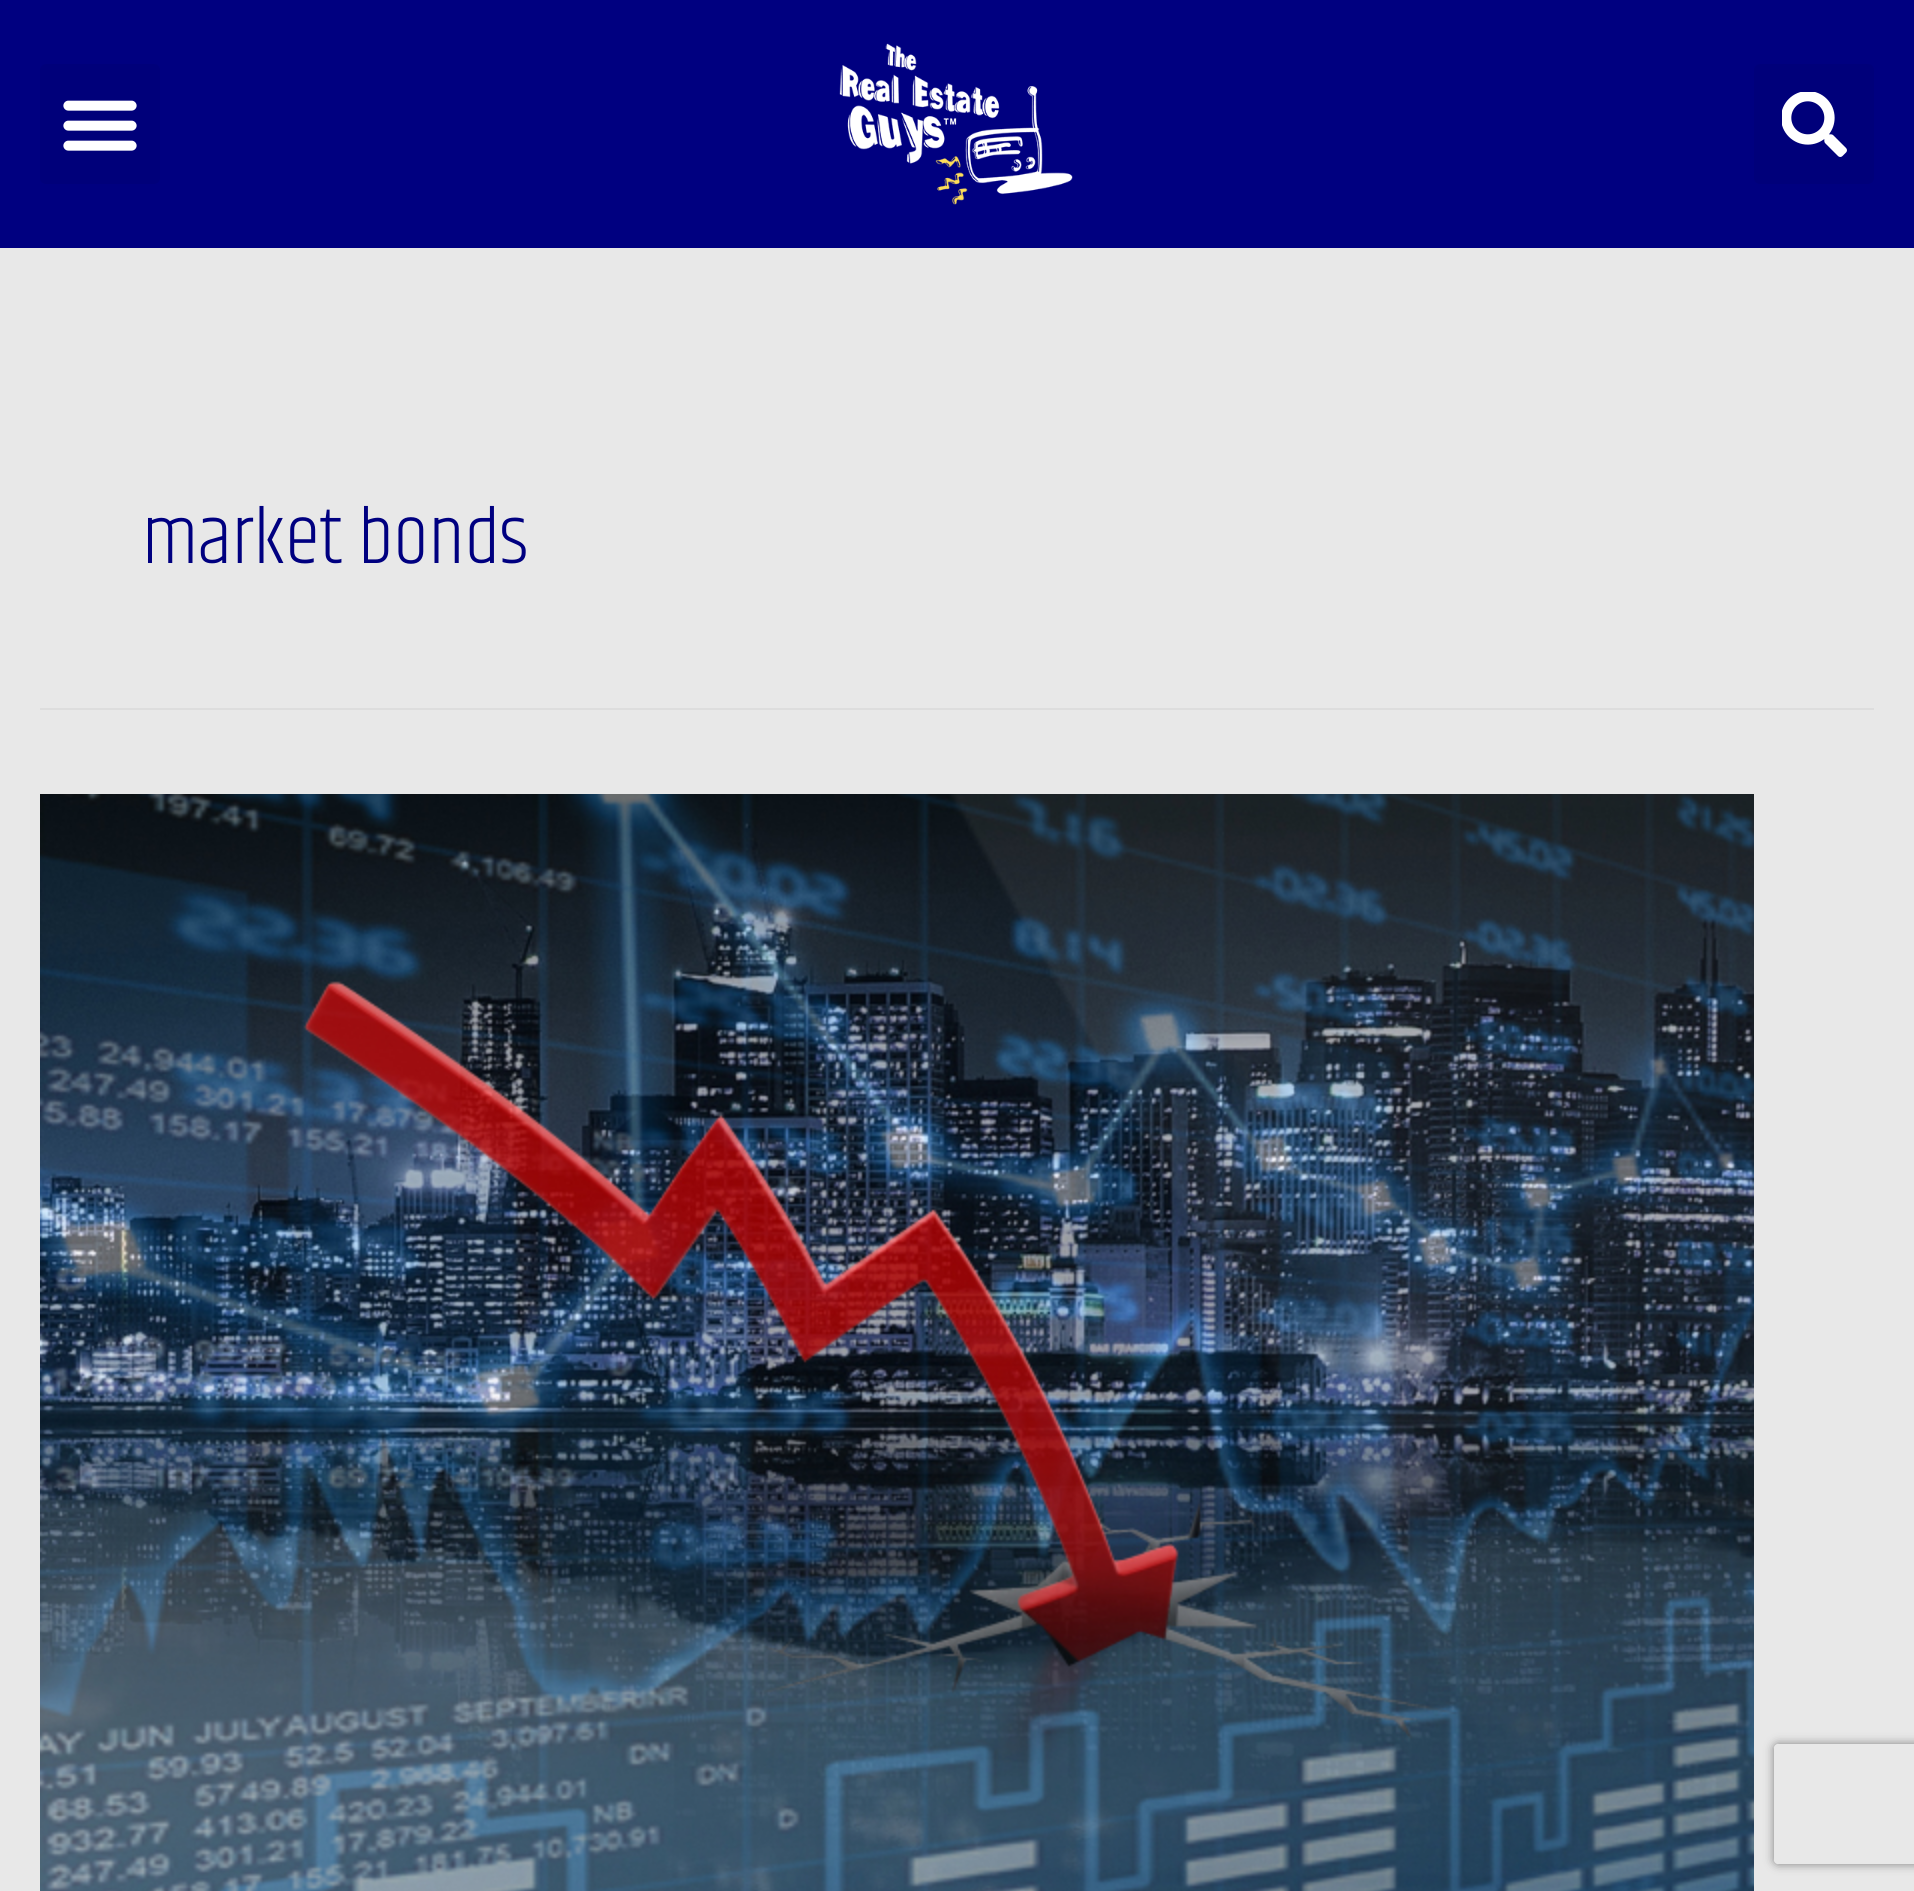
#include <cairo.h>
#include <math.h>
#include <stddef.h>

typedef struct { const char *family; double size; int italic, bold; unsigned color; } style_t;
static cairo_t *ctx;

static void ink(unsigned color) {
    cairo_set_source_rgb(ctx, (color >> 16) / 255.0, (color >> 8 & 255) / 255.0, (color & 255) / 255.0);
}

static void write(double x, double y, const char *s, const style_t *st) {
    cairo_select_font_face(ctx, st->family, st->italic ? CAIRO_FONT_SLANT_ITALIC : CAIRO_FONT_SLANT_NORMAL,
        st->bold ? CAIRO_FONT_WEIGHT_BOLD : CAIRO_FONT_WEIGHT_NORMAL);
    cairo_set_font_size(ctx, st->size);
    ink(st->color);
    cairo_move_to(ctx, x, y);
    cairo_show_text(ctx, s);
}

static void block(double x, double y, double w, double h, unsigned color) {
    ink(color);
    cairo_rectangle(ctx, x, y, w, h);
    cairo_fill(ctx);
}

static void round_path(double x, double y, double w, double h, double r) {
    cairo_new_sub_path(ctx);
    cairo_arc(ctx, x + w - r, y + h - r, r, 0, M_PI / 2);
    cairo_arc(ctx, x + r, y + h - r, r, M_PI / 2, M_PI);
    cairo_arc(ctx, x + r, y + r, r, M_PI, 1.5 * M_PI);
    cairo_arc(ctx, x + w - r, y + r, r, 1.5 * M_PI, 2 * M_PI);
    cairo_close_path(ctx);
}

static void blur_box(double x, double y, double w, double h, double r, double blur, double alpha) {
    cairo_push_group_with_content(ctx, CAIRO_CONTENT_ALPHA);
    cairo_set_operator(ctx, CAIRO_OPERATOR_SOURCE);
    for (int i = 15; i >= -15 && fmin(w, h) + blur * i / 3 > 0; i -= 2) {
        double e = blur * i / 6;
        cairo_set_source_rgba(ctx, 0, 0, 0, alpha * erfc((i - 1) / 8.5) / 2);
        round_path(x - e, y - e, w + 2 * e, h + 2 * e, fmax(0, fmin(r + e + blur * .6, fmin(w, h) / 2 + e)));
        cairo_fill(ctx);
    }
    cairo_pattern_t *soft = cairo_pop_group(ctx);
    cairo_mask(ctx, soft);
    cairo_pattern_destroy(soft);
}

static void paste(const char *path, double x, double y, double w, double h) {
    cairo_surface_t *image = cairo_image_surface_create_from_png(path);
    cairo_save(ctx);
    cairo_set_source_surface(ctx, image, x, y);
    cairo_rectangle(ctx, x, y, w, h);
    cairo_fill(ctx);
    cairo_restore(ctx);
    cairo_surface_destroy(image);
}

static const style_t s1 = {"Khand Light", 80, 0, 0, 0x000080};

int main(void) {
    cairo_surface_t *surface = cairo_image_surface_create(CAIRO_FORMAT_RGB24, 1914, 1891);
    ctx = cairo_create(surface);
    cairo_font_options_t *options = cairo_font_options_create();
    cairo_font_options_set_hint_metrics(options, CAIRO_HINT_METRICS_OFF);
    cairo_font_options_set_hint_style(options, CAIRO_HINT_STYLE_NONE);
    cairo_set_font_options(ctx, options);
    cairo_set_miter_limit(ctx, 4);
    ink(0xe8e8e8);
    cairo_paint(ctx);
    block(0, 0, 1914, 248, 0x000080);
    ink(0x00007a);
    round_path(40, 64, 120, 120, 6);
    cairo_fill(ctx);
    paste("pic1.png", 63, 100, 74, 51);
    paste("pic2.png", 839, 43, 234, 162);
    round_path(1754, 64, 120, 120, 6);
    cairo_fill(ctx);
    paste("pic3.png", 1782, 92, 65, 65);
    block(40, 708, 1834, 2, 0xdddddd);
    write(142, 563, "market bonds", &s1);
    paste("pic4.png", 40, 794, 1714, 1097);
    cairo_save(ctx);
    cairo_set_fill_rule(ctx, CAIRO_FILL_RULE_EVEN_ODD);
    cairo_new_path(ctx);
    cairo_move_to(ctx, 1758, 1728);
    cairo_line_to(ctx, 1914, 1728);
    cairo_line_to(ctx, 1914, 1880);
    cairo_line_to(ctx, 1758, 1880);
    cairo_close_path(ctx);
    cairo_move_to(ctx, 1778, 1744);
    cairo_line_to(ctx, 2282, 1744);
    cairo_curve_to(ctx, 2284, 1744, 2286, 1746, 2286, 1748);
    cairo_line_to(ctx, 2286, 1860);
    cairo_curve_to(ctx, 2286, 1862, 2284, 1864, 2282, 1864);
    cairo_line_to(ctx, 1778, 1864);
    cairo_curve_to(ctx, 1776, 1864, 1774, 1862, 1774, 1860);
    cairo_line_to(ctx, 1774, 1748);
    cairo_curve_to(ctx, 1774, 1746, 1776, 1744, 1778, 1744);
    cairo_close_path(ctx);
    cairo_clip(ctx);
    ink(0x808080);
    blur_box(1774, 1744, 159, 120, 4, 5, 1);
    cairo_restore(ctx);
    cairo_surface_write_to_png(surface, "screenshot.png");
    cairo_font_options_destroy(options);
    cairo_destroy(ctx);
    cairo_surface_destroy(surface);
    return 0;
}
